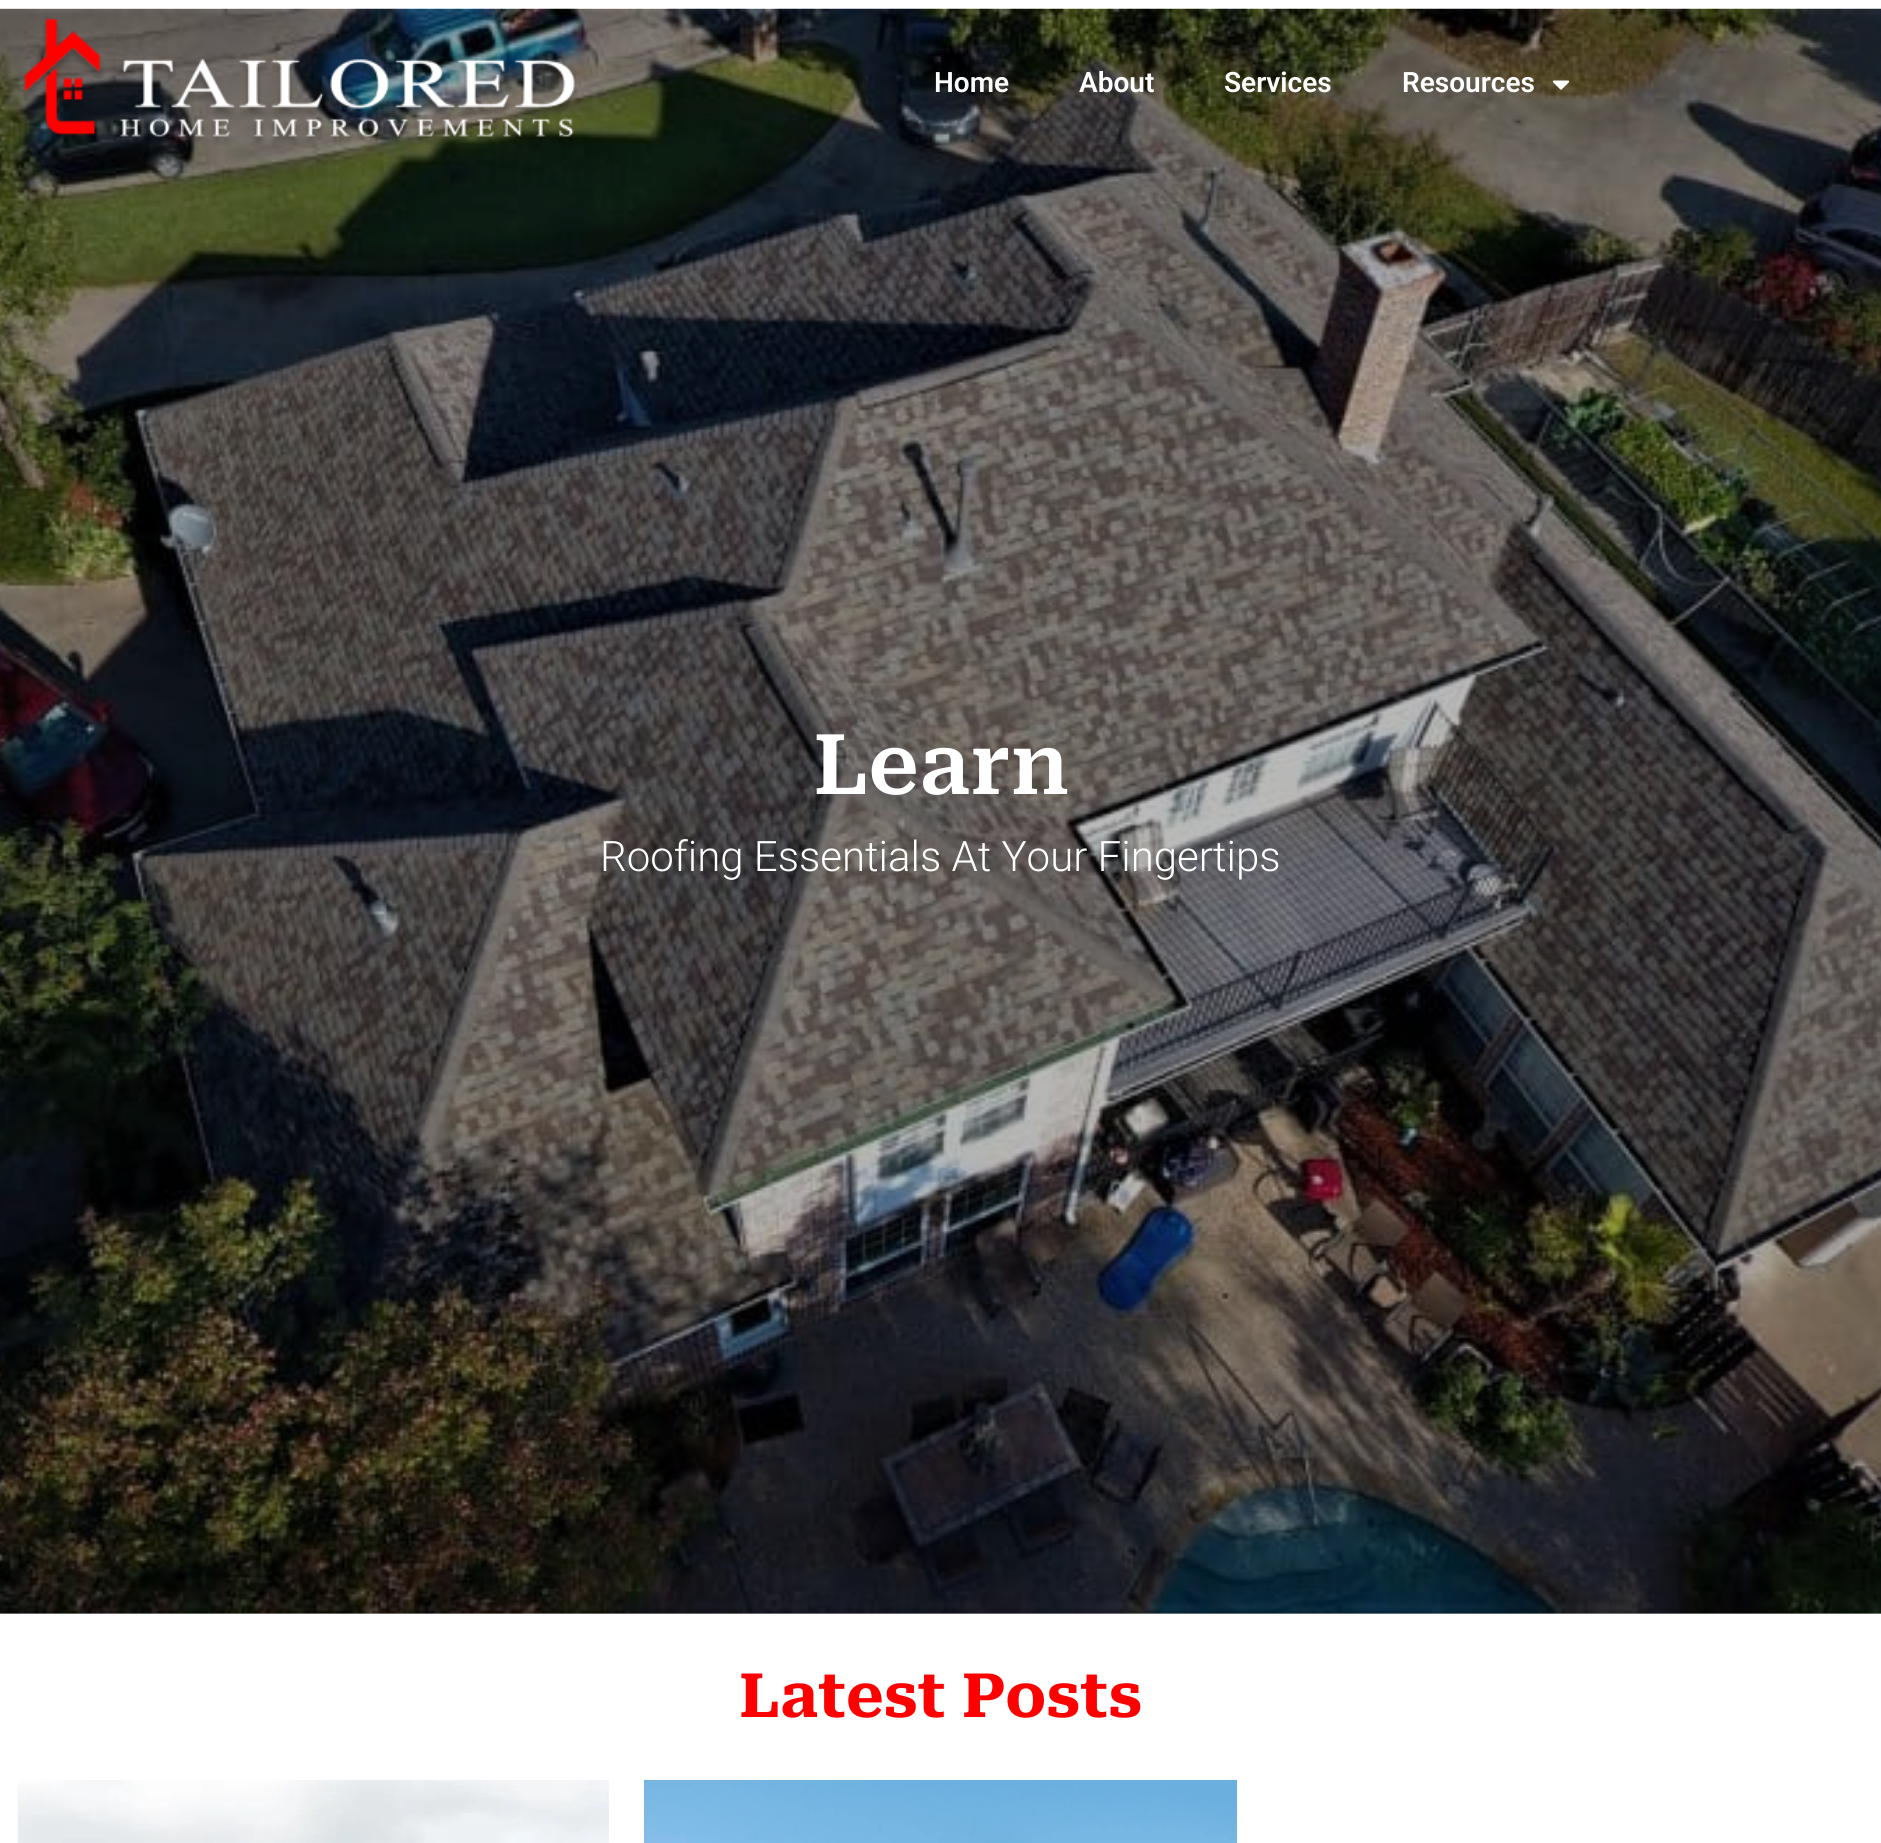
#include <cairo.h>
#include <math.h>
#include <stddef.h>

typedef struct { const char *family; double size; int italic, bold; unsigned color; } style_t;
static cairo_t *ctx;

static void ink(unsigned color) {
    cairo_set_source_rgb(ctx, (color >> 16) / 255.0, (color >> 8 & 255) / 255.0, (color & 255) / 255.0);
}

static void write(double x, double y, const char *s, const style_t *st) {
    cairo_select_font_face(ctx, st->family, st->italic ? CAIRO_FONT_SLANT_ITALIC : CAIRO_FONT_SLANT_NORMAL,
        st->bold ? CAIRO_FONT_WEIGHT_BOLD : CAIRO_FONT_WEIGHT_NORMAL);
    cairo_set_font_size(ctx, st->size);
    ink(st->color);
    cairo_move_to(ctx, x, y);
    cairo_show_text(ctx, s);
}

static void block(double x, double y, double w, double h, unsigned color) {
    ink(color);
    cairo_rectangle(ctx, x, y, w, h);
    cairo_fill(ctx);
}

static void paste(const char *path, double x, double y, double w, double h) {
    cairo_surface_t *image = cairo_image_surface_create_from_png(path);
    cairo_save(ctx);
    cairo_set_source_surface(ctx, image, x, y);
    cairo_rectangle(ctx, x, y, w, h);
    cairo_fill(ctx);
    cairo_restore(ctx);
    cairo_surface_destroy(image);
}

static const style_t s1 = {"Roboto SemiBold", 28, 0, 0, 0xffffff};
static const style_t s2 = {"Roboto Serif SemiBold", 84, 0, 0, 0xffffff};
static const style_t s3 = {"Roboto Light", 42, 0, 0, 0xffffff};
static const style_t s4 = {"Roboto Serif", 61.25, 0, 1, 0xff0000};

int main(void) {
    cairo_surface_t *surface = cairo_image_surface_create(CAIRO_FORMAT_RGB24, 1881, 1843);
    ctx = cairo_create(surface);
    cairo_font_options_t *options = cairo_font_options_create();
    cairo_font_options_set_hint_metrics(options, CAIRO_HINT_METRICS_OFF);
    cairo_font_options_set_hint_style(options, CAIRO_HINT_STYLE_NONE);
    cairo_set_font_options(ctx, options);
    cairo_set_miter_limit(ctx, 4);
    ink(0xffffff);
    cairo_paint(ctx);
    block(0, 1613, 1881, 1, 0xbababa);
    paste("pic3.png", 0, 8, 1881, 1606);
    paste("pic1.png", 22, 18, 555, 127);
    write(934, 92, "Home", &s1);
    write(1079, 92, "About", &s1);
    write(1224, 92, "Services", &s1);
    write(1402, 92, "Resources", &s1);
    paste("pic2.png", 1552, 80, 18, 10);
    write(813, 794, "Learn", &s2);
    write(600, 871, "Roofing Essentials At Your Fingertips", &s3);
    write(739, 1717, "Latest Posts", &s4);
    paste("pic4.png", 17, 1780, 592, 63);
    paste("pic5.png", 644, 1779, 594, 64);
    cairo_surface_write_to_png(surface, "screenshot.png");
    cairo_font_options_destroy(options);
    cairo_destroy(ctx);
    cairo_surface_destroy(surface);
    return 0;
}
